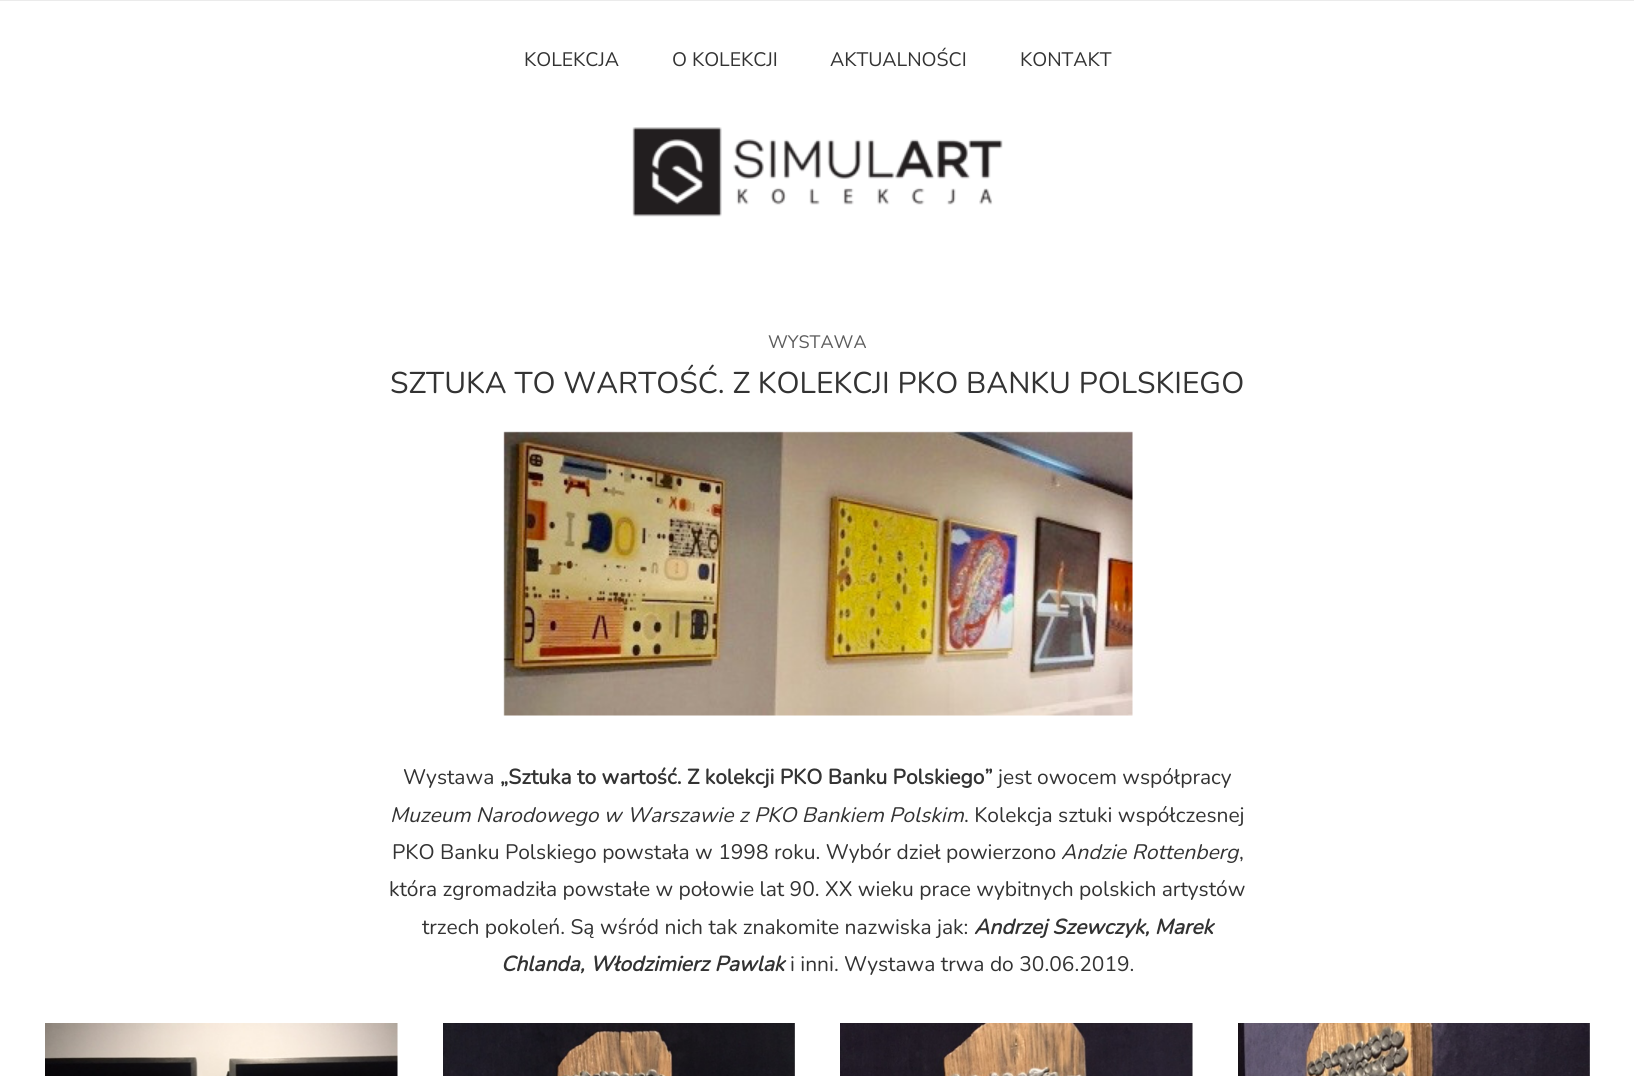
#include <cairo.h>
#include <math.h>
#include <stddef.h>

typedef struct { const char *family; double size; int italic, bold; unsigned color; } style_t;
static cairo_t *ctx;

static void ink(unsigned color) {
    cairo_set_source_rgb(ctx, (color >> 16) / 255.0, (color >> 8 & 255) / 255.0, (color & 255) / 255.0);
}

static void write(double x, double y, const char *s, const style_t *st) {
    cairo_select_font_face(ctx, st->family, st->italic ? CAIRO_FONT_SLANT_ITALIC : CAIRO_FONT_SLANT_NORMAL,
        st->bold ? CAIRO_FONT_WEIGHT_BOLD : CAIRO_FONT_WEIGHT_NORMAL);
    cairo_set_font_size(ctx, st->size);
    ink(st->color);
    cairo_move_to(ctx, x, y);
    cairo_show_text(ctx, s);
}

static void block(double x, double y, double w, double h, unsigned color) {
    ink(color);
    cairo_rectangle(ctx, x, y, w, h);
    cairo_fill(ctx);
}

static void paste(const char *path, double x, double y, double w, double h) {
    cairo_surface_t *image = cairo_image_surface_create_from_png(path);
    cairo_save(ctx);
    cairo_set_source_surface(ctx, image, x, y);
    cairo_rectangle(ctx, x, y, w, h);
    cairo_fill(ctx);
    cairo_restore(ctx);
    cairo_surface_destroy(image);
}

static const style_t s1 = {"Nunito Sans ExtraLight", 19.5, 0, 0, 0x333333};
static const style_t s2 = {"Nunito Sans ExtraLight", 18, 0, 0, 0x5c5c5c};
static const style_t s3 = {"Nunito ExtraLight", 30, 0, 0, 0x333333};
static const style_t s4 = {"Nunito ExtraLight", 21, 0, 0, 0x333333};
static const style_t s5 = {"Nunito", 21, 0, 1, 0x333333};
static const style_t s6 = {"Nunito ExtraLight", 21, 1, 0, 0x333333};
static const style_t s7 = {"Nunito", 21, 1, 1, 0x333333};

int main(void) {
    cairo_surface_t *surface = cairo_image_surface_create(CAIRO_FORMAT_RGB24, 1634, 1076);
    ctx = cairo_create(surface);
    cairo_font_options_t *options = cairo_font_options_create();
    cairo_font_options_set_hint_metrics(options, CAIRO_HINT_METRICS_OFF);
    cairo_font_options_set_hint_style(options, CAIRO_HINT_STYLE_NONE);
    cairo_set_font_options(ctx, options);
    cairo_set_miter_limit(ctx, 4);
    ink(0xffffff);
    cairo_paint(ctx);
    block(0, 0, 1634, 1, 0xebebeb);
    write(524, 66, "KOLEKCJA", &s1);
    write(672, 66, "O KOLEKCJI", &s1);
    write(830, 66, "AKTUALNOŚCI", &s1);
    write(1020, 66, "KONTAKT", &s1);
    paste("pic1.png", 632, 127, 371, 90);
    write(768, 348, "WYSTAWA", &s2);
    write(390, 393, "SZTUKA TO WARTOŚĆ. Z KOLEKCJI PKO BANKU POLSKIEGO", &s3);
    paste("pic2.png", 503, 431, 630, 285);
    write(403, 784, "Wystawa", &s4);
    write(500, 784, "„Sztuka to wartość. Z kolekcji PKO Banku Polskiego”", &s5);
    write(998, 784, "jest owocem współpracy", &s4);
    write(390, 822, "Muzeum Narodowego w Warszawie z PKO Bankiem Polskim", &s6);
    write(964, 822, ". Kolekcja sztuki współczesnej", &s4);
    write(392, 859, "PKO Banku Polskiego powstała w 1998 roku. Wybór dzieł powierzono", &s4);
    write(1061, 859, "Andzie Rottenberg", &s6);
    write(1239, 859, ",", &s4);
    write(389, 896, "która zgromadziła powstałe w połowie lat 90. XX wieku prace wybitnych polskich artystów", &s4);
    write(422, 934, "trzech pokoleń. Są wśród nich tak znakomite nazwiska jak:", &s4);
    write(974, 934, "Andrzej Szewczyk, Marek", &s7);
    write(501, 971, "Chlanda, Włodzimierz Pawlak", &s7);
    write(790, 971, "i inni. Wystawa trwa do 30.06.2019.", &s4);
    paste("pic3.png", 45, 1023, 353, 53);
    paste("pic4.png", 443, 1023, 352, 53);
    paste("pic5.png", 840, 1023, 353, 53);
    paste("pic6.png", 1238, 1023, 352, 53);
    cairo_surface_write_to_png(surface, "screenshot.png");
    cairo_font_options_destroy(options);
    cairo_destroy(ctx);
    cairo_surface_destroy(surface);
    return 0;
}
